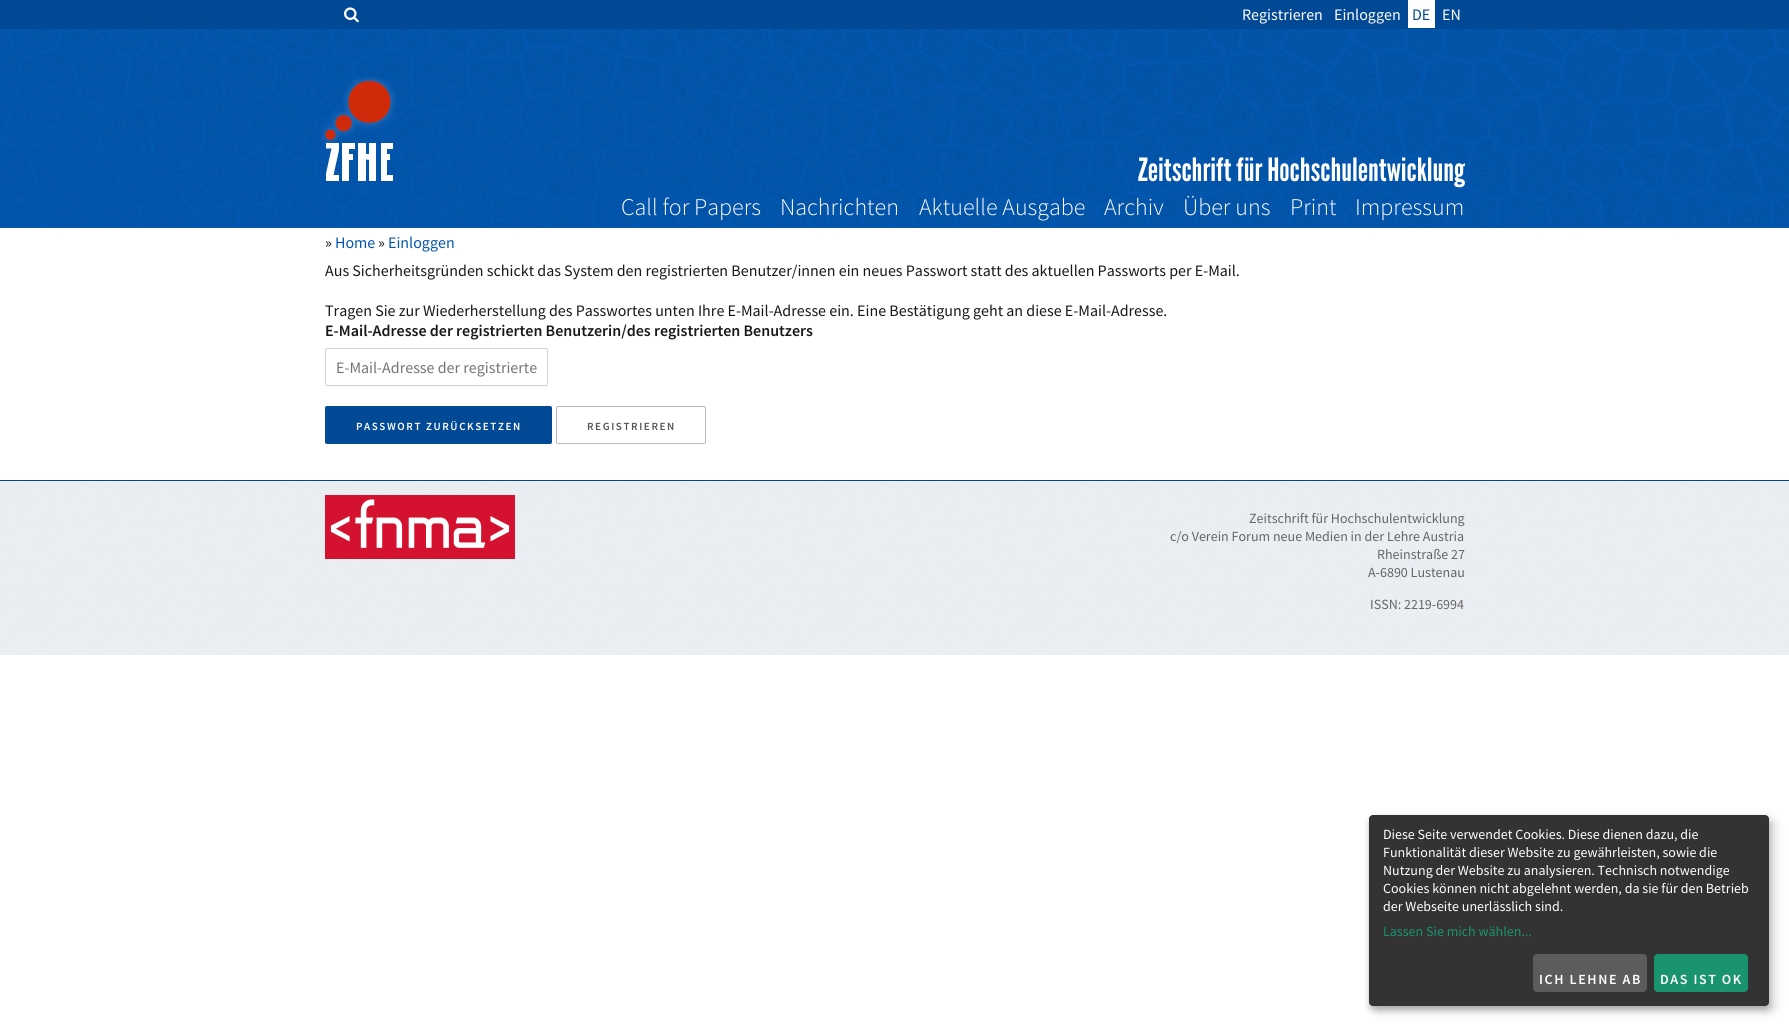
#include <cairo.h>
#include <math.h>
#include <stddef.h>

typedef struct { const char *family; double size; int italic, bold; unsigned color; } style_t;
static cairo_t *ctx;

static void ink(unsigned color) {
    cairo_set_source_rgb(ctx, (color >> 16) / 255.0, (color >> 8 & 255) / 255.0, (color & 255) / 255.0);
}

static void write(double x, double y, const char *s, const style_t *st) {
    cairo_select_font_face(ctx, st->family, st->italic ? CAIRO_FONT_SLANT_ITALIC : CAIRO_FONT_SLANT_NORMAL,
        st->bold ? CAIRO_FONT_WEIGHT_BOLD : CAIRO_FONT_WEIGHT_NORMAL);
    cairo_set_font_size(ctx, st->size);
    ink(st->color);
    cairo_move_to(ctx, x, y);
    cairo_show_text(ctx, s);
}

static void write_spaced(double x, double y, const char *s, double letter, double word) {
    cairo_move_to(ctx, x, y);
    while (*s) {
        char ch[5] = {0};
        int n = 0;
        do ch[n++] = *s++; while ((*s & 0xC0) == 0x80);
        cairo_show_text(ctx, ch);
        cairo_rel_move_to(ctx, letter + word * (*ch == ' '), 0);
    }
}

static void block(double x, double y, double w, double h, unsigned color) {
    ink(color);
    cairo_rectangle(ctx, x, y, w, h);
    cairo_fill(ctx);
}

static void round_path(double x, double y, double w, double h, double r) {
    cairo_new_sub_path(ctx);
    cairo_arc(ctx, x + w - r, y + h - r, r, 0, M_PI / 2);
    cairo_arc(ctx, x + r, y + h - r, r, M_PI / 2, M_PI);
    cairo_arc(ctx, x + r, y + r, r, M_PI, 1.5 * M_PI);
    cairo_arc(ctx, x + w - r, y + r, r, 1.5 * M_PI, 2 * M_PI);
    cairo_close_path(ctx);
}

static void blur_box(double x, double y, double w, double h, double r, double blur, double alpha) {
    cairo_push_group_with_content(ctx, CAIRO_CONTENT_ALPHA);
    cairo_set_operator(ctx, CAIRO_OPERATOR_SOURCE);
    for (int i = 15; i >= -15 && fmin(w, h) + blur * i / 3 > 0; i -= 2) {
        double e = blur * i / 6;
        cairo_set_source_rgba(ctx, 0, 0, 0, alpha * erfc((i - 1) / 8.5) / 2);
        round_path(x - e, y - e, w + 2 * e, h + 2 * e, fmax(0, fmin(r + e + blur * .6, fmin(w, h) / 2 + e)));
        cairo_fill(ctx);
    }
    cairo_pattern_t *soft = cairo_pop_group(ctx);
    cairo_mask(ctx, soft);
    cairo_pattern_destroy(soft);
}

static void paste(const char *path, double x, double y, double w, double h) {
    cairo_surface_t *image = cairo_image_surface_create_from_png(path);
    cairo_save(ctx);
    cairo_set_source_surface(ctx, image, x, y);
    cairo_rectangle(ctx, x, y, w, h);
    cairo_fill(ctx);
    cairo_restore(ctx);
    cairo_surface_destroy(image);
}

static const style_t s1 = {"Source Sans Pro", 16, 0, 0, 0xffffff};
static const style_t s2 = {"Source Sans Pro", 16, 0, 0, 0x024995};
static const style_t s3 = {"League Gothic", 32, 0, 0, 0xffffff};
static const style_t s4 = {"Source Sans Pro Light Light", 24, 0, 0, 0xffffff};
static const style_t s5 = {"Source Sans Pro", 16, 0, 0, 0x181818};
static const style_t s6 = {"Source Sans Pro", 16, 0, 0, 0x0256af};
static const style_t s7 = {"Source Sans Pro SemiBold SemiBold", 16, 0, 0, 0x181818};
static const style_t s8 = {"Source Sans Pro", 16, 0, 0, 0x757575};
static const style_t s9 = {"Source Sans Pro", 14, 0, 0, 0x666666};
static const style_t s10 = {"Source Sans Pro", 14, 0, 0, 0xffffff};
static const style_t s11 = {"Source Sans Pro", 14, 0, 0, 0x1a936f};

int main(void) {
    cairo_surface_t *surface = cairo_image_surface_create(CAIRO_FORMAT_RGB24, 1789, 1026);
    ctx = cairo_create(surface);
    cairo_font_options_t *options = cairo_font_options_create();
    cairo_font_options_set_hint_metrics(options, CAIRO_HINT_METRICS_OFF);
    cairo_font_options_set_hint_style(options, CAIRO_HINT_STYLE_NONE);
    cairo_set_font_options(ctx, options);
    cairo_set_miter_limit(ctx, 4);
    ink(0xffffff);
    cairo_paint(ctx);
    block(0, 227, 1789, 1, 0x0256af);
    paste("pic1.png", 0, 29, 1789, 198);
    block(0, 0, 1789, 29, 0x024995);
    paste("pic2.png", 344, 7, 15, 16);
    write(1242, 20, "Registrieren", &s1);
    write(1334, 20, "Einloggen", &s1);
    block(1408, 0, 27, 28, 0xffffff);
    write(1412, 20, "DE", &s2);
    write(1442, 20, "EN", &s1);
    paste("pic3.png", 321, 77, 75, 104);
    write(1138, 181, "Zeitschrift für Hochschulentwicklung", &s3);
    write(621, 215, "Call for Papers", &s4);
    write(780, 215, "Nachrichten", &s4);
    write(919, 215, "Aktuelle Ausgabe", &s4);
    write(1104, 215, "Archiv", &s4);
    write(1183, 215, "Über uns", &s4);
    write(1290, 215, "Print", &s4);
    write(1355, 215, "Impressum", &s4);
    write(325, 248, "»", &s5);
    write(335, 248, "Home", &s6);
    write(378, 248, "»", &s5);
    write(388, 248, "Einloggen", &s6);
    write(325, 276, "Aus Sicherheitsgründen schickt das System den registrierten Benutzer/innen ein neues Passwort statt des aktuellen Passworts per E-Mail.", &s5);
    write(325, 316, "Tragen Sie zur Wiederherstellung des Passwortes unten Ihre E-Mail-Adresse ein. Eine Bestätigung geht an diese E-Mail-Adresse.", &s5);
    write(325, 336, "E-Mail-Adresse der registrierten Benutzerin/des registrierten Benutzers", &s7);
    round_path(325.5, 348.5, 222, 37, 1.5);
    ink(0xd1d1d1);
    cairo_set_line_width(ctx, 1);
    cairo_stroke(ctx);
    write(336, 373, "E-Mail-Adresse der registrierte", &s8);
    ink(0x024a96);
    round_path(325.5, 406.5, 226, 37, 1.5);
    cairo_fill_preserve(ctx);
    cairo_stroke(ctx);
    cairo_select_font_face(ctx, "Source Sans Pro SemiBold SemiBold", CAIRO_FONT_SLANT_NORMAL, CAIRO_FONT_WEIGHT_NORMAL);
    cairo_set_font_size(ctx, 11);
    ink(0xffffff);
    write_spaced(356, 430, "PASSWORT ZURÜCKSETZEN", 1.6, 0);
    round_path(556.5, 406.5, 149, 37, 1.5);
    ink(0xbbbbbb);
    cairo_stroke(ctx);
    ink(0x555555);
    write_spaced(587, 430, "REGISTRIEREN", 1.6, 0);
    paste("pic4.png", 0, 481, 1789, 174);
    block(0, 480, 1789, 1, 0x024a96);
    paste("pic5.png", 325, 495, 190, 64);
    write(1249, 523, "Zeitschrift für Hochschulentwicklung", &s9);
    write(1170, 541, "c/o Verein Forum neue Medien in der Lehre Austria", &s9);
    write(1377, 559, "Rheinstraße 27", &s9);
    write(1368, 577, "A-6890 Lustenau", &s9);
    write(1370, 609, "ISSN: 2219-6994", &s9);
    ink(0x000000);
    blur_box(1374, 820, 400, 191, 4, 5, 0.19);
    blur_box(1369, 819, 400, 191, 4, 3, 0.2);
    ink(0x333333);
    round_path(1369, 815, 400, 191, 4);
    cairo_fill(ctx);
    write(1383, 839, "Diese Seite verwendet Cookies. Diese dienen dazu, die", &s10);
    write(1383, 857, "Funktionalität dieser Website zu gewährleisten, sowie die", &s10);
    write(1383, 875, "Nutzung der Website zu analysieren. Technisch notwendige", &s10);
    write(1383, 893, "Cookies können nicht abgelehnt werden, da sie für den Betrieb", &s10);
    write(1383, 911, "der Webseite unerlässlich sind.", &s10);
    write(1383, 936, "Lassen Sie mich wählen...", &s11);
    ink(0x5c5c5c);
    round_path(1533, 954, 114, 38, 4);
    cairo_fill(ctx);
    cairo_select_font_face(ctx, "Source Sans Pro SemiBold SemiBold", CAIRO_FONT_SLANT_NORMAL, CAIRO_FONT_WEIGHT_NORMAL);
    ink(0xffffff);
    write_spaced(1539, 984, "ICH LEHNE AB", 1.6, 0);
    ink(0x1a936f);
    round_path(1654, 954, 94, 38, 4);
    cairo_fill(ctx);
    ink(0xffffff);
    write_spaced(1660, 984, "DAS IST OK", 1.6, 0);
    cairo_surface_write_to_png(surface, "screenshot.png");
    cairo_font_options_destroy(options);
    cairo_destroy(ctx);
    cairo_surface_destroy(surface);
    return 0;
}
